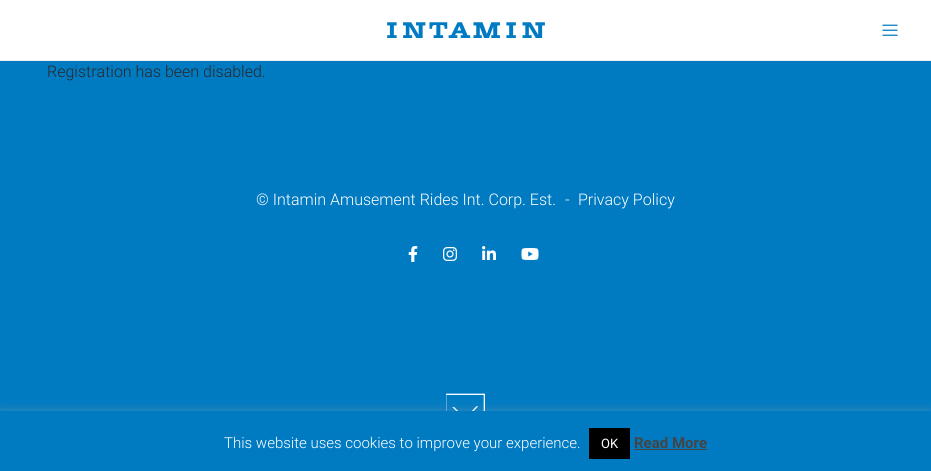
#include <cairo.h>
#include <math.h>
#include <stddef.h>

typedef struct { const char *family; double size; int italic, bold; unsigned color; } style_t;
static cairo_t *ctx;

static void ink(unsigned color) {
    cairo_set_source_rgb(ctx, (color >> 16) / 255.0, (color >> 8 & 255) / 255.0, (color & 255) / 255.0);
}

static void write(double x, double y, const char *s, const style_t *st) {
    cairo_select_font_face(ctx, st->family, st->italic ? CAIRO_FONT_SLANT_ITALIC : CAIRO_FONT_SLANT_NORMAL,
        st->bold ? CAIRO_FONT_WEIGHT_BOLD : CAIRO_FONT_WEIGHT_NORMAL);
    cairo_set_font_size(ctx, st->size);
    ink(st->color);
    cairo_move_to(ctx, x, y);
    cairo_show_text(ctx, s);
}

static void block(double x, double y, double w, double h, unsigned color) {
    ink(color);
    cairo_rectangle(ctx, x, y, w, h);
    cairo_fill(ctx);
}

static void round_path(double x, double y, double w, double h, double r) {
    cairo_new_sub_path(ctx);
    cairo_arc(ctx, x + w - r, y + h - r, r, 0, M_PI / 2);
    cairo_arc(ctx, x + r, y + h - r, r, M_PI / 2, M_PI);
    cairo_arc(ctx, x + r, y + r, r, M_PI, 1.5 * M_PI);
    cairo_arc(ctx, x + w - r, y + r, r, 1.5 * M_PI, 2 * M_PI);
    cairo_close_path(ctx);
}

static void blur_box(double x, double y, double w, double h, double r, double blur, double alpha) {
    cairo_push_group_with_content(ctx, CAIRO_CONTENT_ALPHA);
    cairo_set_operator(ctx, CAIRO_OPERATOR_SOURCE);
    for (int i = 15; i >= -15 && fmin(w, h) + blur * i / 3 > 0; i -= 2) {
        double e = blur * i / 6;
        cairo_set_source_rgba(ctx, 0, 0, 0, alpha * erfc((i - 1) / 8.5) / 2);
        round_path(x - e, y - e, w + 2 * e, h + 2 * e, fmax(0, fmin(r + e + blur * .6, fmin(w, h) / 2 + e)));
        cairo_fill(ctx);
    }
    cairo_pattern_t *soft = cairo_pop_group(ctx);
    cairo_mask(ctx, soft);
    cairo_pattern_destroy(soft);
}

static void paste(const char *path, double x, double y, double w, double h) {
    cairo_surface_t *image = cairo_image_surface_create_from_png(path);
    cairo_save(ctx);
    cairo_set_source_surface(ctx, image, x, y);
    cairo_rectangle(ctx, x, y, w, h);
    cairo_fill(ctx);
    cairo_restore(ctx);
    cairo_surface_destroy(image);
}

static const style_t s1 = {"Roboto Light", 16, 0, 0, 0x282727};
static const style_t s2 = {"Roboto Light", 16, 0, 0, 0xffffff};
static const style_t s3 = {"Roboto Light", 15, 0, 0, 0xffffff};
static const style_t s4 = {"Roboto", 13, 0, 0, 0xffffff};
static const style_t s5 = {"Roboto", 15, 0, 1, 0x444444};

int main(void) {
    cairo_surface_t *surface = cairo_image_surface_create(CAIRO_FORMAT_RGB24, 931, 471);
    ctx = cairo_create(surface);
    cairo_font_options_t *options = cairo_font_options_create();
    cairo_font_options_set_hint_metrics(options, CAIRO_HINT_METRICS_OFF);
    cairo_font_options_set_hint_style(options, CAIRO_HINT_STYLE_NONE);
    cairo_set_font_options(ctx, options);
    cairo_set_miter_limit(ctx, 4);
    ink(0x007bc2);
    cairo_paint(ctx);
    block(0, 0, 931, 60, 0xffffff);
    paste("pic1.png", 387, 22, 158, 16);
    paste("pic2.png", 882, 24, 16, 12);
    block(0, 60, 931, 1, 0xeeeeee);
    write(47, 77, "Registration has been disabled.", &s1);
    write(256, 205, "© Intamin Amusement Rides Int. Corp. Est.", &s2);
    write(565, 205, "-", &s2);
    write(578, 205, "Privacy Policy", &s2);
    paste("pic3.png", 408, 246, 10, 16);
    paste("pic4.png", 443, 247, 14, 14);
    paste("pic5.png", 482, 246, 14, 14);
    paste("pic6.png", 521, 248, 18, 12);
    paste("pic7.png", 446, 393, 39, 18);
    ink(0xacabab);
    blur_box(0, 410, 931, 60, 0, 5, 0.3);
    block(0, 411, 931, 60, 0x007bc2);
    write(224, 448, "This website uses cookies to improve your experience.", &s3);
    block(589, 428, 41, 31, 0x000000);
    write(601, 448, "OK", &s4);
    write(634, 448, "Read More", &s5);
    block(634, 449, 73, 1, 0x444444);
    cairo_surface_write_to_png(surface, "screenshot.png");
    cairo_font_options_destroy(options);
    cairo_destroy(ctx);
    cairo_surface_destroy(surface);
    return 0;
}
